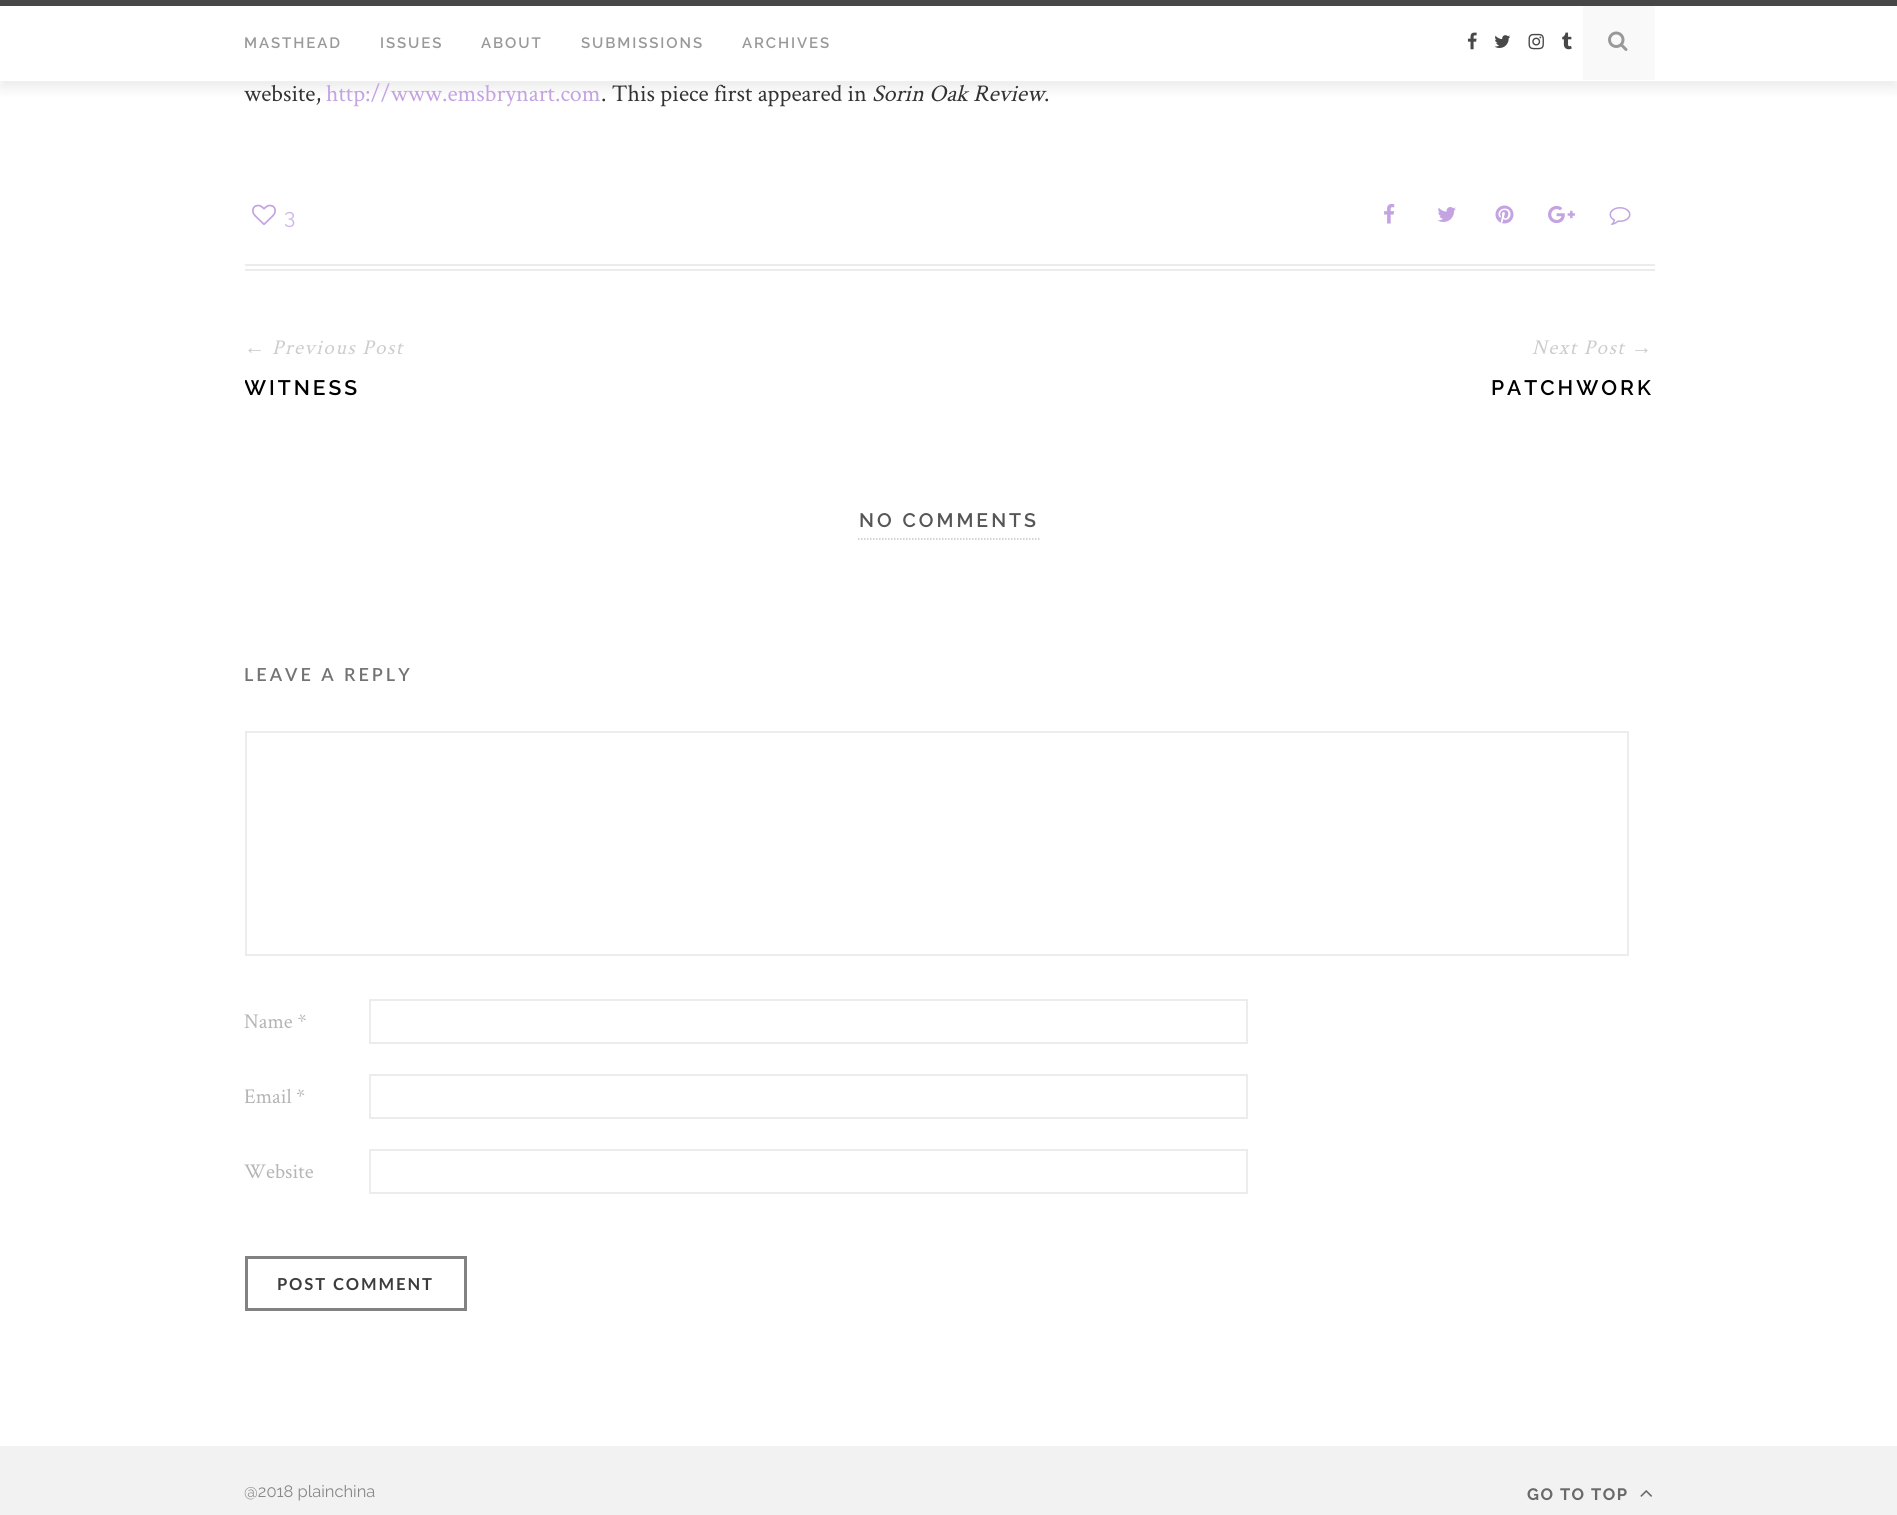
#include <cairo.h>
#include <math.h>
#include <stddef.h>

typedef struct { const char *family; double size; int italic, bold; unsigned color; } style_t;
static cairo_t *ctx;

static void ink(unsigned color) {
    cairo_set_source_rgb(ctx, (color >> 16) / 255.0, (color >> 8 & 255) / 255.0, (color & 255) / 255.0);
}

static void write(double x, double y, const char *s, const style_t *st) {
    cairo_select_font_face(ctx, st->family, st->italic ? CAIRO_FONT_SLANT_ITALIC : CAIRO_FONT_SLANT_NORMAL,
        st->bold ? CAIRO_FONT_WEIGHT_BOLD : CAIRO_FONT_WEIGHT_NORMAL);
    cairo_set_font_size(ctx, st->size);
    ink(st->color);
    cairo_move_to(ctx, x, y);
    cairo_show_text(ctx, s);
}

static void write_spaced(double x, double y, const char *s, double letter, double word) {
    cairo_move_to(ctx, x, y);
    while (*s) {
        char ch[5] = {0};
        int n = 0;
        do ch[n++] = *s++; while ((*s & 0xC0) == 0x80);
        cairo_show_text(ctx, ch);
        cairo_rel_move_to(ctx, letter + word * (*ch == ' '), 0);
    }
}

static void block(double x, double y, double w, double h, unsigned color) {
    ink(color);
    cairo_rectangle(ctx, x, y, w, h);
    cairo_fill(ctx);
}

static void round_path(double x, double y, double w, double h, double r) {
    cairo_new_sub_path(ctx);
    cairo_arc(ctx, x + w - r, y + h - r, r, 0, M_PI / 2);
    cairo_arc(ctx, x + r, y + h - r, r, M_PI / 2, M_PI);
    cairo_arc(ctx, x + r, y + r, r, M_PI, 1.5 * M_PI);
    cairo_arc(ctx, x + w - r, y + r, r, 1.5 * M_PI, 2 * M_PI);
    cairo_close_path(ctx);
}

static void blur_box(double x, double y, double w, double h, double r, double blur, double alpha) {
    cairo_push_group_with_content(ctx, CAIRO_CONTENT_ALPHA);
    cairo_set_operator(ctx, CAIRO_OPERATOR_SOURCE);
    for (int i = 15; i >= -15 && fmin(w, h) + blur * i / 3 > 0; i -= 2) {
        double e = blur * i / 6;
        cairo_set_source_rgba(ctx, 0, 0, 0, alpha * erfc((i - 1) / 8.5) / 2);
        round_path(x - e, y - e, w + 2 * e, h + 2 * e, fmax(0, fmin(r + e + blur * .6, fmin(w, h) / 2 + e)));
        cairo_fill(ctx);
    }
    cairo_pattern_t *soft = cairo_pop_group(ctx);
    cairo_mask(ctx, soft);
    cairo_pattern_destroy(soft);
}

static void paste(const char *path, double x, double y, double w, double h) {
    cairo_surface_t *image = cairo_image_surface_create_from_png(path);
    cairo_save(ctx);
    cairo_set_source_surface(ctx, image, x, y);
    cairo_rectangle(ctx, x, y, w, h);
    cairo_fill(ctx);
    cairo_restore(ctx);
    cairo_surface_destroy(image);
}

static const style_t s1 = {"Crimson Text", 24, 0, 0, 0x333333};
static const style_t s2 = {"Crimson Text", 24, 0, 0, 0xc3a3e2};
static const style_t s3 = {"Crimson Text", 24, 1, 0, 0x333333};
static const style_t s4 = {"Raleway", 21, 0, 0, 0xcfb5e8};
static const style_t s5 = {"Crimson Text", 21, 0, 0, 0xb5b5b5};
static const style_t s6 = {"Raleway", 16.5, 0, 0, 0x888888};

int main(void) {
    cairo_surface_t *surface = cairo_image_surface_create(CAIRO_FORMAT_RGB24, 1897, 1515);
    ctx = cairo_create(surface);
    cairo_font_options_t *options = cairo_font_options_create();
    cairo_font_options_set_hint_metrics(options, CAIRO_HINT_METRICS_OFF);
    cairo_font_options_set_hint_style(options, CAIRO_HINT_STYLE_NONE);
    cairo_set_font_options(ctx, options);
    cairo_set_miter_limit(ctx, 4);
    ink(0xffffff);
    cairo_paint(ctx);
    ink(0x161616);
    blur_box(0, 8, 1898, 81, 0, 6, 0.08);
    block(0, 6, 1897, 75, 0xffffff);
    block(0, 0, 1897, 6, 0x474747);
    cairo_select_font_face(ctx, "Raleway SemiBold", CAIRO_FONT_SLANT_NORMAL, CAIRO_FONT_WEIGHT_NORMAL);
    cairo_set_font_size(ctx, 15);
    ink(0x999999);
    write_spaced(244, 48, "MASTHEAD", 1.9, 0);
    write_spaced(380, 48, "ISSUES", 1.9, 0);
    write_spaced(481, 48, "ABOUT", 1.9, 0);
    write_spaced(581, 48, "SUBMISSIONS", 1.9, 0);
    write_spaced(742, 48, "ARCHIVES", 1.9, 0);
    paste("pic1.png", 1467, 32, 10, 18);
    paste("pic2.png", 1494, 35, 17, 13);
    paste("pic3.png", 1528, 33, 16, 17);
    paste("pic4.png", 1562, 32, 10, 18);
    block(1583, 6, 72, 74, 0xf9f9f9);
    paste("pic5.png", 1608, 31, 20, 20);
    write(244, 101, "website,", &s1);
    write(326, 101, "http://www.emsbrynart.com", &s2);
    write(601, 101, ". This piece first appeared in", &s1);
    write(872, 101, "Sorin Oak Review", &s3);
    write(1044, 101, ".", &s1);
    block(245, 264, 1410, 2, 0xececec);
    block(245, 269, 1410, 2, 0xececec);
    paste("pic6.png", 252, 204, 24, 22);
    write(284, 224, "3", &s4);
    paste("pic7.png", 1384, 204, 11, 20);
    paste("pic8.png", 1437, 207, 19, 15);
    paste("pic9.png", 1495, 205, 19, 19);
    paste("pic10.png", 1548, 205, 27, 19);
    paste("pic11.png", 1609, 207, 22, 18);
    cairo_select_font_face(ctx, "Liberation Serif", CAIRO_FONT_SLANT_ITALIC, CAIRO_FONT_WEIGHT_NORMAL);
    ink(0xcccccc);
    write_spaced(244, 354, "←", 1.5, 0);
    cairo_select_font_face(ctx, "Crimson Text", CAIRO_FONT_SLANT_ITALIC, CAIRO_FONT_WEIGHT_NORMAL);
    write_spaced(272, 354, "Previous Post", 1.5, 0);
    cairo_save(ctx);
    cairo_rectangle(ctx, 245, 315, 1410, 84);
    cairo_clip(ctx);
    cairo_select_font_face(ctx, "Raleway SemiBold", CAIRO_FONT_SLANT_NORMAL, CAIRO_FONT_WEIGHT_NORMAL);
    ink(0x000000);
    write_spaced(244, 395, "WITNESS", 3, 0);
    cairo_restore(ctx);
    write_spaced(1532, 354, "Next Post", 1.5, 0);
    cairo_select_font_face(ctx, "Liberation Serif", CAIRO_FONT_SLANT_ITALIC, CAIRO_FONT_WEIGHT_NORMAL);
    write_spaced(1631, 354, "→", 1.5, 0);
    cairo_select_font_face(ctx, "Raleway SemiBold", CAIRO_FONT_SLANT_NORMAL, CAIRO_FONT_WEIGHT_NORMAL);
    ink(0x000000);
    write_spaced(1491, 395, "PATCHWORK", 3, 0);
    cairo_new_path(ctx);
    cairo_move_to(ctx, 858, 539);
    cairo_line_to(ctx, 1039.5, 539);
    ink(0xc5c5c5);
    cairo_set_line_width(ctx, 1.5);
    cairo_set_dash(ctx, (double[]){1.5, 1.5}, 2, 0);
    cairo_stroke(ctx);
    cairo_set_font_size(ctx, 19.5);
    ink(0x565656);
    write_spaced(859, 527, "NO COMMENTS", 3, 0);
    cairo_select_font_face(ctx, "Lato SemiBold", CAIRO_FONT_SLANT_NORMAL, CAIRO_FONT_WEIGHT_NORMAL);
    cairo_set_font_size(ctx, 18);
    ink(0x737373);
    write_spaced(244, 681, "LEAVE A REPLY", 3, 0);
    cairo_rectangle(ctx, 246, 732, 1382, 223);
    ink(0xececec);
    cairo_set_line_width(ctx, 2);
    cairo_set_dash(ctx, NULL, 0, 0);
    cairo_stroke(ctx);
    write(244, 1028, "Name *", &s5);
    cairo_rectangle(ctx, 370, 1000, 877, 43);
    ink(0xececec);
    cairo_stroke(ctx);
    cairo_save(ctx);
    cairo_rectangle(ctx, 245, 663, 1410, 678);
    cairo_clip(ctx);
    write(244, 1103, "Email", &s5);
    cairo_restore(ctx);
    write(296, 1103, "*", &s5);
    cairo_rectangle(ctx, 370, 1075, 877, 43);
    ink(0xececec);
    cairo_stroke(ctx);
    write(244, 1178, "Website", &s5);
    cairo_rectangle(ctx, 370, 1150, 877, 43);
    ink(0xececec);
    cairo_stroke(ctx);
    cairo_rectangle(ctx, 246.5, 1257.5, 219, 52);
    ink(0x828282);
    cairo_set_line_width(ctx, 3);
    cairo_stroke(ctx);
    cairo_select_font_face(ctx, "Lato", CAIRO_FONT_SLANT_NORMAL, CAIRO_FONT_WEIGHT_BOLD);
    cairo_set_font_size(ctx, 16.5);
    ink(0x3c3c3c);
    write_spaced(277, 1290, "POST COMMENT", 1.9, 0);
    block(0, 1446, 1897, 69, 0xf2f2f2);
    write(244, 1497, "@2018 plainchina", &s6);
    cairo_select_font_face(ctx, "Raleway", CAIRO_FONT_SLANT_NORMAL, CAIRO_FONT_WEIGHT_BOLD);
    ink(0x696969);
    write_spaced(1527, 1500, "GO TO TOP", 1.5, 0);
    paste("pic12.png", 1640, 1490, 12, 7);
    cairo_surface_write_to_png(surface, "screenshot.png");
    cairo_font_options_destroy(options);
    cairo_destroy(ctx);
    cairo_surface_destroy(surface);
    return 0;
}
